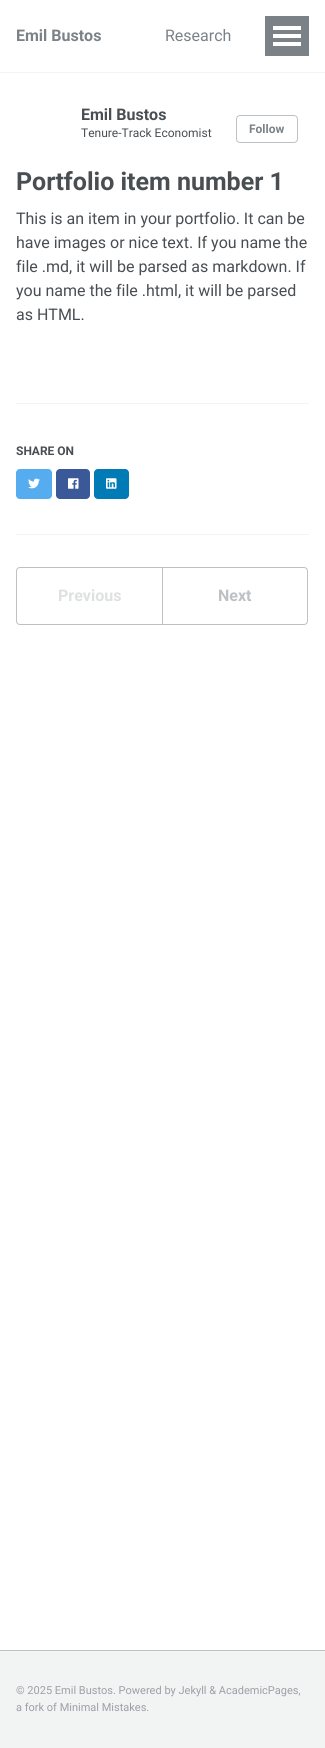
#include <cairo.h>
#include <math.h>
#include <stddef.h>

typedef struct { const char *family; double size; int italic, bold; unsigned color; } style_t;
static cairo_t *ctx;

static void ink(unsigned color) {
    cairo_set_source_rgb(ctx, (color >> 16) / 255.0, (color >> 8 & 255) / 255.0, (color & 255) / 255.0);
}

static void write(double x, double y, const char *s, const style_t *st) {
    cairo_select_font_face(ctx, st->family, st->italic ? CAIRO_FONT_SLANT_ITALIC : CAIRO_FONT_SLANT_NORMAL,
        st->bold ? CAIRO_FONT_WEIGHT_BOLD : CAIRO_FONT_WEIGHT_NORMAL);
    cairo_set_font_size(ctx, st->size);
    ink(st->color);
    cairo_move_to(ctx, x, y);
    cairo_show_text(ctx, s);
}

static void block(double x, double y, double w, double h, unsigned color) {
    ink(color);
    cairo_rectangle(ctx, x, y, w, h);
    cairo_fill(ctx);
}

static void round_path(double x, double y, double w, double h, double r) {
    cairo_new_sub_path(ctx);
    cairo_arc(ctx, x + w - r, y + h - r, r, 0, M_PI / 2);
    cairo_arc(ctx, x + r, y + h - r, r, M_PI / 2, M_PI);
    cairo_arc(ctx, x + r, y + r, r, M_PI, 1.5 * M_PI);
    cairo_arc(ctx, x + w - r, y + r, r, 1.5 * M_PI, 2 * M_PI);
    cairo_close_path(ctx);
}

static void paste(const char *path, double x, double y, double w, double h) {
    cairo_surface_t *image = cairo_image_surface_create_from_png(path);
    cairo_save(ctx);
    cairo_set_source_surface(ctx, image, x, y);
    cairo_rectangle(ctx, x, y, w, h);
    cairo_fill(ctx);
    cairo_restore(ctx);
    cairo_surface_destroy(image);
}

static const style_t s1 = {"Roboto", 16, 0, 1, 0x7a8288};
static const style_t s2 = {"Roboto", 16, 0, 0, 0x7a8288};
static const style_t s3 = {"Roboto", 16, 0, 1, 0x494e52};
static const style_t s4 = {"Roboto", 12, 0, 0, 0x494e52};
static const style_t s5 = {"Roboto", 12, 0, 1, 0x7a8288};
static const style_t s6 = {"Roboto", 25, 0, 1, 0x494e52};
static const style_t s7 = {"Roboto", 16, 0, 0, 0x494e52};
static const style_t s8 = {"Roboto", 12, 0, 1, 0x494e52};
static const style_t s9 = {"Roboto", 16, 0, 1, 0xdee0e1};
static const style_t s10 = {"Roboto", 16, 0, 1, 0xbdc1c4};
static const style_t s11 = {"Roboto", 11, 0, 0, 0x9ba1a6};

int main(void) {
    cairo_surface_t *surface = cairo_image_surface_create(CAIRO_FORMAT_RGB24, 325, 1748);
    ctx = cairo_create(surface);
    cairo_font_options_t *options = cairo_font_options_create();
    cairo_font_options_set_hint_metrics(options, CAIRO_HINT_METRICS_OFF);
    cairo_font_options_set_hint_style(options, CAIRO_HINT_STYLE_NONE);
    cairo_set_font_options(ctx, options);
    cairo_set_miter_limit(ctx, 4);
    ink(0xffffff);
    cairo_paint(ctx);
    block(0, 72, 325, 1, 0xf2f3f3);
    write(16, 41, "Emil Bustos", &s1);
    write(165, 41, "Research", &s2);
    block(265, 16, 44, 40, 0x7a8288);
    block(273, 34, 28, 4, 0xffffff);
    block(273, 26, 28, 4, 0xffffff);
    block(273, 42, 28, 4, 0xffffff);
    write(81, 120, "Emil Bustos", &s3);
    write(81, 137, "Tenure-Track Economist", &s4);
    round_path(236.5, 115.5, 61, 27, 3.5);
    ink(0xbdc1c4);
    cairo_set_line_width(ctx, 1);
    cairo_stroke(ctx);
    write(249, 133, "Follow", &s5);
    write(16, 190, "Portfolio item number 1", &s6);
    write(16, 224, "This is an item in your portfolio. It can be", &s7);
    write(16, 248, "have images or nice text. If you name the", &s7);
    write(16, 272, "file .md, it will be parsed as markdown. If", &s7);
    write(16, 296, "you name the file .html, it will be parsed", &s7);
    write(16, 320, "as HTML.", &s7);
    block(16, 403, 293, 1, 0xf2f3f3);
    write(16, 455, "SHARE ON", &s8);
    ink(0x55acee);
    round_path(16, 469, 36, 30, 4);
    cairo_fill(ctx);
    paste("pic1.png", 28, 478, 12, 11);
    ink(0x3b5998);
    round_path(56, 469, 34, 30, 4);
    cairo_fill(ctx);
    paste("pic2.png", 68, 478, 11, 11);
    ink(0x007bb6);
    round_path(94, 469, 35, 30, 4);
    cairo_fill(ctx);
    paste("pic3.png", 106, 478, 11, 11);
    block(16, 534, 293, 1, 0xf2f3f3);
    cairo_new_path(ctx);
    cairo_move_to(ctx, 20, 567.5);
    cairo_line_to(ctx, 162.5, 567.5);
    cairo_line_to(ctx, 162.5, 624.5);
    cairo_line_to(ctx, 20, 624.5);
    cairo_curve_to(ctx, 18, 624.5, 16.5, 623, 16.5, 621);
    cairo_line_to(ctx, 16.5, 571);
    cairo_curve_to(ctx, 16.5, 569, 18, 567.5, 20, 567.5);
    cairo_close_path(ctx);
    ink(0xbdc1c4);
    cairo_stroke(ctx);
    write(58, 601, "Previous", &s9);
    cairo_new_path(ctx);
    cairo_move_to(ctx, 162.5, 567.5);
    cairo_line_to(ctx, 304, 567.5);
    cairo_curve_to(ctx, 306, 567.5, 307.5, 569, 307.5, 571);
    cairo_line_to(ctx, 307.5, 621);
    cairo_curve_to(ctx, 307.5, 623, 306, 624.5, 304, 624.5);
    cairo_line_to(ctx, 162.5, 624.5);
    cairo_close_path(ctx);
    ink(0xbdc1c4);
    cairo_stroke(ctx);
    write(218, 601, "Next", &s10);
    block(0, 1651, 325, 97, 0xf2f3f3);
    block(0, 1650, 325, 1, 0xbdc1c4);
    write(16, 1694, "© 2025 Emil Bustos. Powered by Jekyll & AcademicPages,", &s11);
    write(16, 1711, "a fork of Minimal Mistakes.", &s11);
    cairo_surface_write_to_png(surface, "screenshot.png");
    cairo_font_options_destroy(options);
    cairo_destroy(ctx);
    cairo_surface_destroy(surface);
    return 0;
}
